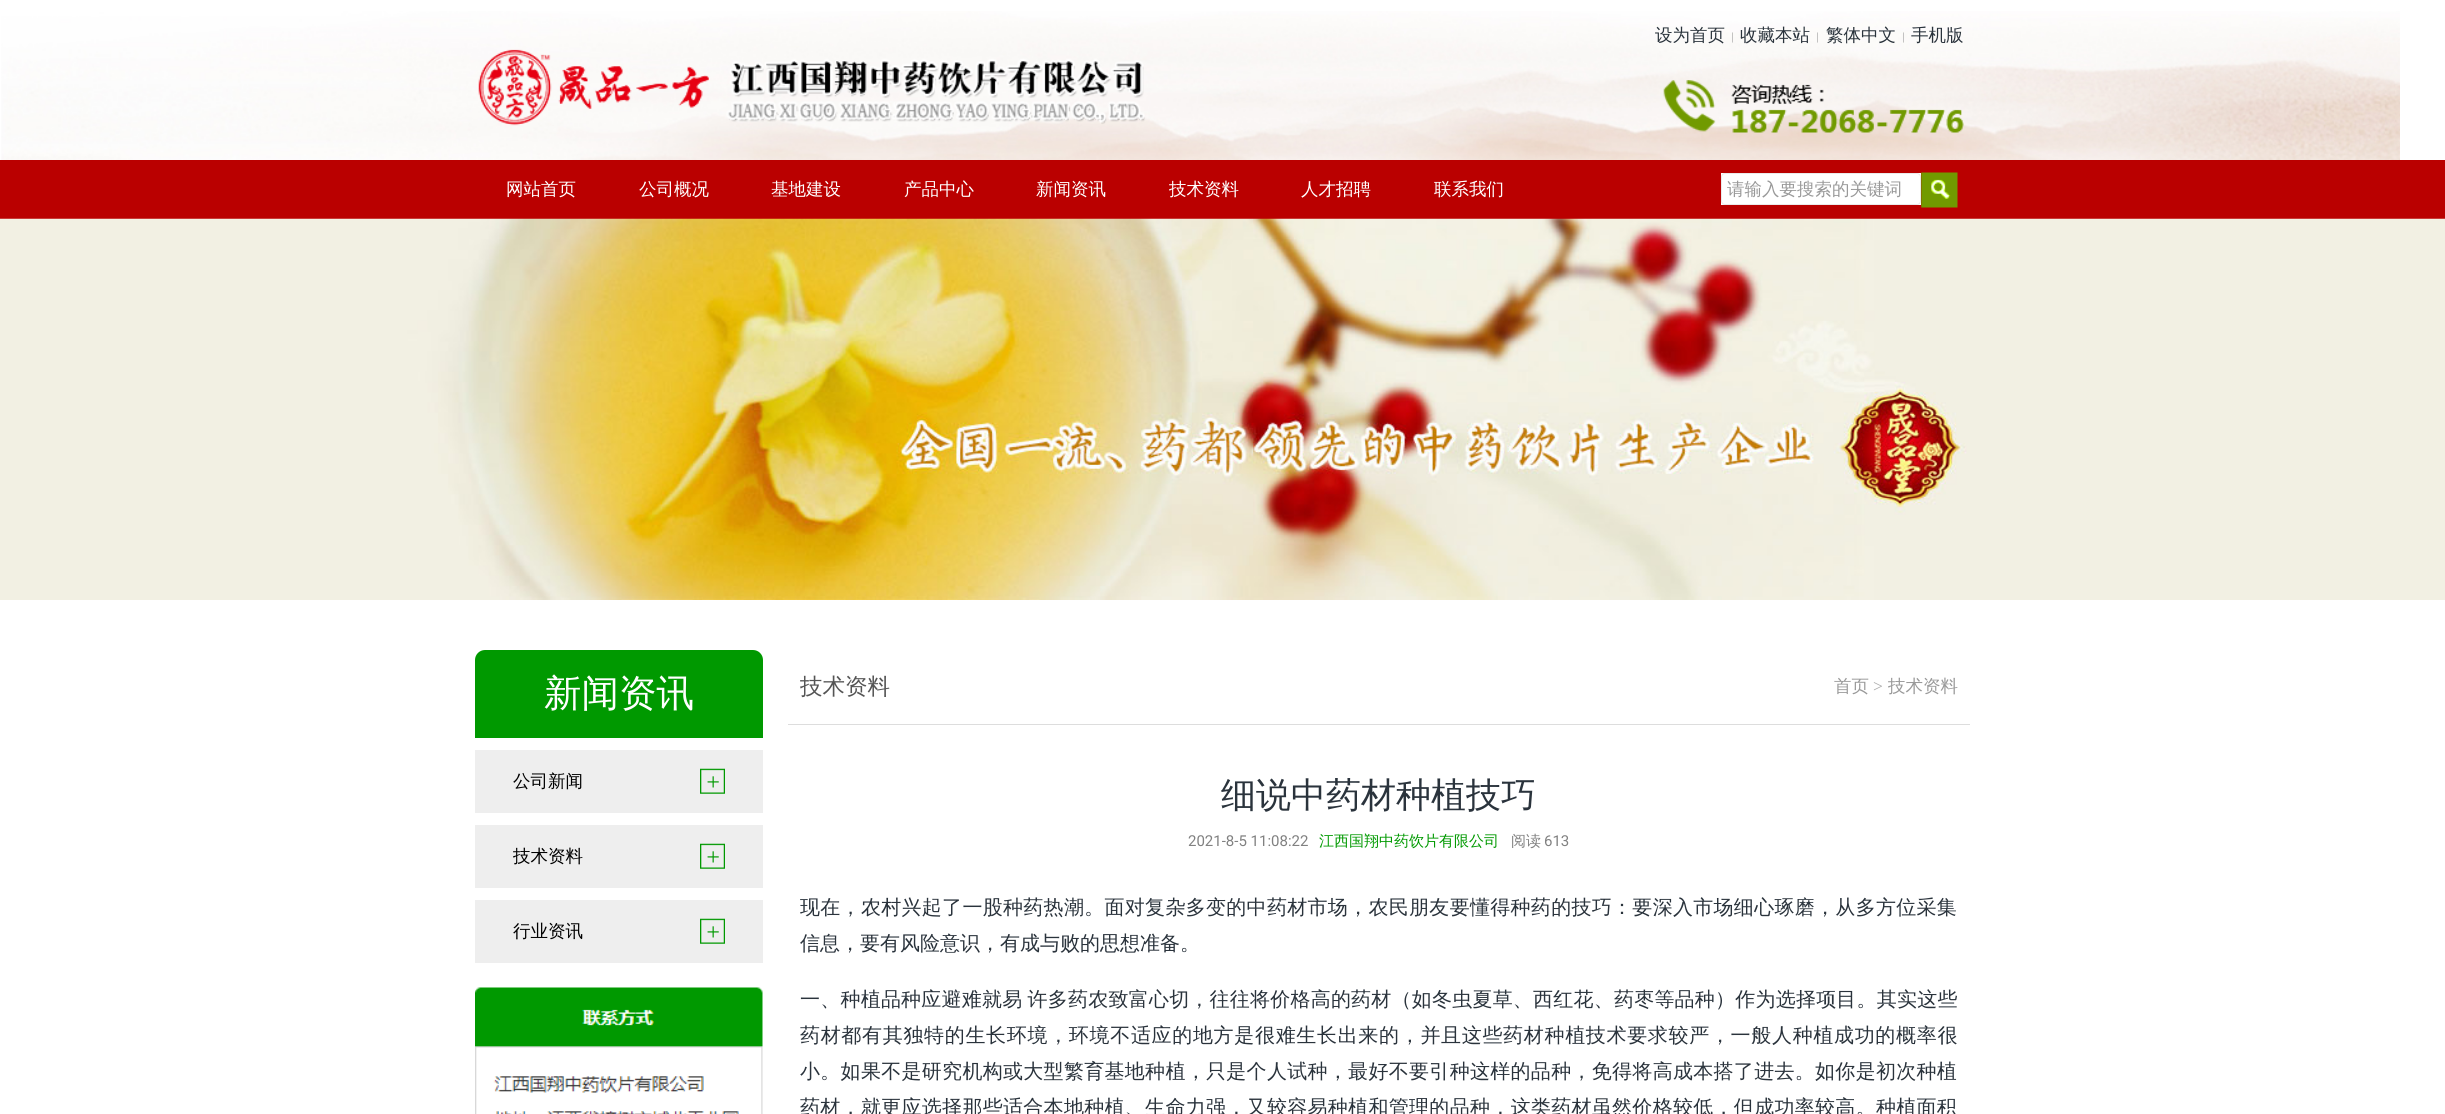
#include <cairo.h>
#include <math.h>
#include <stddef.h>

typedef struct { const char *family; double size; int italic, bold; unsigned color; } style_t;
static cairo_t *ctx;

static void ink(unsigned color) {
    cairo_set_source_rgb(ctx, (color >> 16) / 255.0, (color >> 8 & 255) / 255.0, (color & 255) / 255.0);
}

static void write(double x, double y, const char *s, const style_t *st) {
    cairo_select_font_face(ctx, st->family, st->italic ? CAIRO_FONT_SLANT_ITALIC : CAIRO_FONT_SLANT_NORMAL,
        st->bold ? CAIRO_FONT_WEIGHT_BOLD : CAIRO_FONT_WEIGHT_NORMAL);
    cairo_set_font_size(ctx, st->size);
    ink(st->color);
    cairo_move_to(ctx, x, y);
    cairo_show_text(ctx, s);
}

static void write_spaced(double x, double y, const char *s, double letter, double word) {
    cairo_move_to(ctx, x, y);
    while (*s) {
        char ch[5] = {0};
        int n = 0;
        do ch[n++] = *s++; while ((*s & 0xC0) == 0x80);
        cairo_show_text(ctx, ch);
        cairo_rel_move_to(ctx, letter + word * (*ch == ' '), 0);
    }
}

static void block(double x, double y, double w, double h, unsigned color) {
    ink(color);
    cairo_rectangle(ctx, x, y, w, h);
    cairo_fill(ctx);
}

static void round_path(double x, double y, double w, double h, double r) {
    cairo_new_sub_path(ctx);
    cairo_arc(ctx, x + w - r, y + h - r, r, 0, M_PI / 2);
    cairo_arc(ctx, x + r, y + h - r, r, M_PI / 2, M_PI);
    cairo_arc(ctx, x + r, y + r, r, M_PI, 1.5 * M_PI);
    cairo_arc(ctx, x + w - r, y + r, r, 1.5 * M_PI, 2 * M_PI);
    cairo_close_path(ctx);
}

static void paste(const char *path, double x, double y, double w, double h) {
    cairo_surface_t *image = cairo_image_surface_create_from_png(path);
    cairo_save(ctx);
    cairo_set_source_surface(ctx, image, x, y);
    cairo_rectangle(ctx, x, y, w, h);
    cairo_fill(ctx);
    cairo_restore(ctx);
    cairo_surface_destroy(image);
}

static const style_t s1 = {"WenQuanYi Zen Hei Medium", 17.5, 0, 0, 0x2a333c};
static const style_t s2 = {"Roboto", 12, 0, 0, 0xbbbbbb};
static const style_t s3 = {"WenQuanYi Zen Hei Medium", 17.5, 0, 0, 0xffffff};
static const style_t s4 = {"WenQuanYi Zen Hei Medium", 17.5, 0, 0, 0x999999};
static const style_t s5 = {"WenQuanYi Zen Hei Medium", 37.5, 0, 0, 0xffffff};
static const style_t s6 = {"WenQuanYi Zen Hei Medium", 17.5, 0, 0, 0x000000};
static const style_t s7 = {"WenQuanYi Zen Hei Medium", 22.5, 0, 0, 0x555555};
static const style_t s8 = {"Liberation Serif", 17.5, 0, 0, 0xaaaaaa};
static const style_t s9 = {"WenQuanYi Zen Hei Medium", 35, 0, 0, 0x2a333c};
static const style_t s10 = {"Roboto", 15, 0, 0, 0x818181};
static const style_t s11 = {"WenQuanYi Zen Hei Medium", 15, 0, 0, 0x009900};
static const style_t s12 = {"WenQuanYi Zen Hei Medium", 15, 0, 0, 0x818181};
static const style_t s13 = {"WenQuanYi Zen Hei Medium", 20, 0, 0, 0x2a333c};

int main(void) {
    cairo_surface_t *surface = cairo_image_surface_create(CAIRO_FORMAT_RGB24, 2445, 1114);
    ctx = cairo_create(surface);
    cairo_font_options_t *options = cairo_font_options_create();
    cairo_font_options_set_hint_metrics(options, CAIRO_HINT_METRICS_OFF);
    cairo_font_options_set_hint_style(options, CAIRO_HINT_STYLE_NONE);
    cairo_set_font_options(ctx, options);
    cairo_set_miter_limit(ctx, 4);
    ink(0xffffff);
    cairo_paint(ctx);
    paste("pic1.png", 1, 11, 2399, 149);
    write(1655, 41, "设为首页", &s1);
    write(1731, 41, "|", &s2);
    write(1740, 41, "收藏本站", &s1);
    write(1816, 41, "|", &s2);
    write(1826, 41, "繁体中文", &s1);
    write(1902, 41, "|", &s2);
    write(1911, 41, "手机版", &s1);
    paste("pic2.png", 1663, 80, 301, 53);
    paste("pic3.png", 478, 49, 667, 77);
    block(0, 160, 2445, 59, 0xba0000);
    write(506, 195, "网站首页", &s3);
    write(639, 195, "公司概况", &s3);
    write(771, 195, "基地建设", &s3);
    write(904, 195, "产品中心", &s3);
    write(1036, 195, "新闻资讯", &s3);
    write(1169, 195, "技术资料", &s3);
    write(1301, 195, "人才招聘", &s3);
    write(1434, 195, "联系我们", &s3);
    block(1721, 173, 200, 32, 0xffffff);
    round_path(1721.5, 173.5, 199, 31, 3.5);
    ink(0xeaeaea);
    cairo_set_line_width(ctx, 1);
    cairo_stroke(ctx);
    write(1727, 195, "请输入要搜索的关键词", &s4);
    paste("pic4.png", 1921, 172, 37, 36);
    paste("pic5.png", 0, 218, 2445, 382);
    ink(0x009900);
    cairo_new_path(ctx);
    cairo_move_to(ctx, 485, 650);
    cairo_line_to(ctx, 753, 650);
    cairo_curve_to(ctx, 758.5, 650, 763, 654.5, 763, 660);
    cairo_line_to(ctx, 763, 738);
    cairo_line_to(ctx, 475, 738);
    cairo_line_to(ctx, 475, 660);
    cairo_curve_to(ctx, 475, 654.5, 479.5, 650, 485, 650);
    cairo_close_path(ctx);
    cairo_fill(ctx);
    write(544, 706, "新闻资讯", &s5);
    block(475, 750, 288, 63, 0xeeeeee);
    paste("pic6.png", 700, 768, 25, 26);
    write(513, 787, "公司新闻", &s6);
    block(475, 825, 288, 63, 0xeeeeee);
    paste("pic6.png", 700, 843, 25, 26);
    write(513, 862, "技术资料", &s6);
    block(475, 900, 288, 63, 0xeeeeee);
    paste("pic6.png", 700, 918, 25, 26);
    write(513, 937, "行业资讯", &s6);
    paste("pic7.png", 475, 987, 288, 127);
    block(788, 724, 1182, 1, 0xdddddd);
    write(800, 694, "技术资料", &s7);
    write(1834, 692, "首页", &s4);
    write(1873, 692, ">", &s8);
    write(1888, 692, "技术资料", &s4);
    write(1221, 807, "细说中药材种植技巧", &s9);
    write(1188, 846, "2021-8-5 11:08:22", &s10);
    write(1319, 846, "江西国翔中药饮片有限公司", &s11);
    write(1511, 846, "阅读", &s12);
    write(1544, 846, "613", &s10);
    cairo_select_font_face(ctx, "WenQuanYi Zen Hei Medium", CAIRO_FONT_SLANT_NORMAL, CAIRO_FONT_WEIGHT_NORMAL);
    cairo_set_font_size(ctx, 20);
    ink(0x2a333c);
    write_spaced(800, 914, "现在，农村兴起了一股种药热潮。面对复杂多变的中药材市场，农民朋友要懂得种药的技巧：要深入市场细心琢磨，从多方位采集", 0.3, 0);
    write(800, 950, "信息，要有风险意识，有成与败的思想准备。", &s13);
    write_spaced(800, 1006, "一、种植品种应避难就易 许多药农致富心切，往往将价格高的药材（如冬虫夏草、西红花、药枣等品种）作为选择项目。其实这些", 0.22, -1);
    write_spaced(800, 1042, "药材都有其独特的生长环境，环境不适应的地方是很难生长出来的，并且这些药材种植技术要求较严，一般人种植成功的概率很", 0.68, 0);
    write_spaced(800, 1078, "小。如果不是研究机构或大型繁育基地种植，只是个人试种，最好不要引种这样的品种，免得将高成本搭了进去。如你是初次种植", 0.3, 0);
    write_spaced(800, 1114, "药材，就更应选择那些适合本地种植、生命力强，又较容易种植和管理的品种，这类药材虽然价格较低，但成功率较高。种植面积", 0.3, 0);
    cairo_surface_write_to_png(surface, "screenshot.png");
    cairo_font_options_destroy(options);
    cairo_destroy(ctx);
    cairo_surface_destroy(surface);
    return 0;
}
